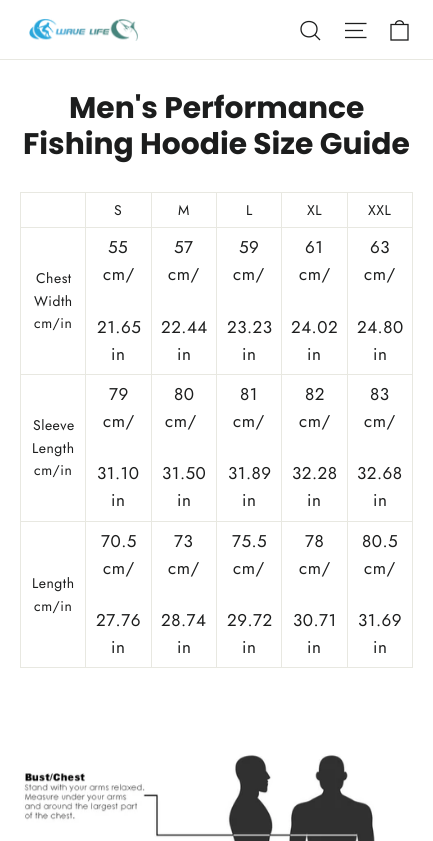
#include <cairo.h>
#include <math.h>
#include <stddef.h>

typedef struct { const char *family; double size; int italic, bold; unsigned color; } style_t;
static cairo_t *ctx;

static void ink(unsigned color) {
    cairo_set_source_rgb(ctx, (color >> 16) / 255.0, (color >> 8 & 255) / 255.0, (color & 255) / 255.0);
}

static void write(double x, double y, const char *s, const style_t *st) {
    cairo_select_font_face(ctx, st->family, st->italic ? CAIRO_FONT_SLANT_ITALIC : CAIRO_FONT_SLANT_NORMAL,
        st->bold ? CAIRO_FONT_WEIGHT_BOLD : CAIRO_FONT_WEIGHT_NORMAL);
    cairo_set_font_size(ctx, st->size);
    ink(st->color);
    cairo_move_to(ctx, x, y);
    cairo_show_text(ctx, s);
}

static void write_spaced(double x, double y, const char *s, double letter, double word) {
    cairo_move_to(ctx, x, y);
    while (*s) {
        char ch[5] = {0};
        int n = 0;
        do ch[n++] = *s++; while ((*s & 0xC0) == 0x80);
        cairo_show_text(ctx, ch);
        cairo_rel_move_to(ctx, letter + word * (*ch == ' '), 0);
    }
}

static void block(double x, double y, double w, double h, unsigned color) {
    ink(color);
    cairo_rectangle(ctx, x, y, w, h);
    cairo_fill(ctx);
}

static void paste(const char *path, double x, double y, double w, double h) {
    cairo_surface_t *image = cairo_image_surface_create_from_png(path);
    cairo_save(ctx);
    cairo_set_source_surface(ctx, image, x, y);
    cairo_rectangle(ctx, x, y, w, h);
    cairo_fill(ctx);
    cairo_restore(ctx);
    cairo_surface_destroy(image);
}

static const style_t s1 = {"Poppins", 29.75, 0, 1, 0x1c1d1d};

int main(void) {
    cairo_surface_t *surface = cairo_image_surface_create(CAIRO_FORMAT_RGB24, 433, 841);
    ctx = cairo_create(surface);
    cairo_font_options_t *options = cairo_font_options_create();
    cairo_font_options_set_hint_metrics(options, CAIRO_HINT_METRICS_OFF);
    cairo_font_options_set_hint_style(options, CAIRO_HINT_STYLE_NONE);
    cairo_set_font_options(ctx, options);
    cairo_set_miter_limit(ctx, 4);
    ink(0xffffff);
    cairo_paint(ctx);
    block(0, 59, 433, 1, 0xe8e8e1);
    paste("pic1.png", 29, 18, 109, 23);
    cairo_new_path(ctx);
    cairo_move_to(ctx, 317, 29);
    cairo_curve_to(ctx, 317, 39.5, 301, 39.5, 301, 29);
    cairo_curve_to(ctx, 301, 19, 317, 19, 317, 29);
    cairo_close_path(ctx);
    cairo_move_to(ctx, 320, 40);
    cairo_line_to(ctx, 314.5, 34.5);
    ink(0x1c1d1d);
    cairo_set_line_width(ctx, 1.3);
    cairo_stroke(ctx);
    cairo_new_path(ctx);
    cairo_move_to(ctx, 345, 23.5);
    cairo_line_to(ctx, 366.5, 23.5);
    cairo_move_to(ctx, 345, 30.5);
    cairo_line_to(ctx, 363, 30.5);
    cairo_move_to(ctx, 345, 37.5);
    cairo_line_to(ctx, 366.5, 37.5);
    cairo_stroke(ctx);
    cairo_new_path(ctx);
    cairo_move_to(ctx, 391, 24.5);
    cairo_line_to(ctx, 408, 24.5);
    cairo_line_to(ctx, 408, 40);
    cairo_line_to(ctx, 391, 40);
    cairo_close_path(ctx);
    cairo_move_to(ctx, 395.5, 24.5);
    cairo_curve_to(ctx, 395.5, 19.5, 403.5, 19.5, 403.5, 24.5);
    cairo_stroke(ctx);
    write(69, 118, "Men's Performance", &s1);
    write(23, 154, "Fishing Hoodie Size Guide", &s1);
    block(20, 192, 393, 476, 0xe8e8e1);
    block(21, 193, 64, 34, 0xffffff);
    block(86, 193, 65, 34, 0xffffff);
    cairo_select_font_face(ctx, "Jost", CAIRO_FONT_SLANT_NORMAL, CAIRO_FONT_WEIGHT_NORMAL);
    cairo_set_font_size(ctx, 14);
    ink(0x1c1d1d);
    write_spaced(114, 215, "S", 0.5, 0);
    block(152, 193, 64, 34, 0xffffff);
    ink(0x1c1d1d);
    write_spaced(178, 215, "M", 0.5, 0);
    block(217, 193, 64, 34, 0xffffff);
    ink(0x1c1d1d);
    write_spaced(246, 215, "L", 0.5, 0);
    block(282, 193, 65, 34, 0xffffff);
    ink(0x1c1d1d);
    write_spaced(307, 215, "XL", 0.5, 0);
    block(348, 193, 64, 34, 0xffffff);
    ink(0x1c1d1d);
    write_spaced(368, 215, "XXL", 0.5, 0);
    block(21, 228, 64, 146, 0xffffff);
    ink(0x1c1d1d);
    write_spaced(36, 283, "Chest", 0.5, 0);
    write_spaced(34, 306, "Width", 0.5, 0);
    write_spaced(34, 328, "cm/in", 0.5, 0);
    block(86, 228, 65, 146, 0xffffff);
    cairo_set_font_size(ctx, 17);
    ink(0x1c1d1d);
    write_spaced(108, 253, "55", 0.5, 0);
    write_spaced(103, 280, "cm/", 0.5, 0);
    write_spaced(97, 333, "21.65", 0.5, 0);
    write_spaced(111, 360, "in", 0.5, 0);
    block(152, 228, 64, 146, 0xffffff);
    ink(0x1c1d1d);
    write_spaced(174, 253, "57", 0.5, 0);
    write_spaced(168, 280, "cm/", 0.5, 0);
    write_spaced(161, 333, "22.44", 0.5, 0);
    write_spaced(177, 360, "in", 0.5, 0);
    block(217, 228, 64, 146, 0xffffff);
    ink(0x1c1d1d);
    write_spaced(239, 253, "59", 0.5, 0);
    write_spaced(233, 280, "cm/", 0.5, 0);
    write_spaced(227, 333, "23.23", 0.5, 0);
    write_spaced(242, 360, "in", 0.5, 0);
    block(282, 228, 65, 146, 0xffffff);
    ink(0x1c1d1d);
    write_spaced(305, 253, "61", 0.5, 0);
    write_spaced(299, 280, "cm/", 0.5, 0);
    write_spaced(291, 333, "24.02", 0.5, 0);
    write_spaced(307, 360, "in", 0.5, 0);
    block(348, 228, 64, 146, 0xffffff);
    ink(0x1c1d1d);
    write_spaced(370, 253, "63", 0.5, 0);
    write_spaced(364, 280, "cm/", 0.5, 0);
    write_spaced(357, 333, "24.80", 0.5, 0);
    write_spaced(373, 360, "in", 0.5, 0);
    block(21, 375, 64, 146, 0xffffff);
    cairo_set_font_size(ctx, 14);
    ink(0x1c1d1d);
    write_spaced(33, 430, "Sleeve", 0.5, 0);
    write_spaced(32, 453, "Length", 0.5, 0);
    write_spaced(34, 475, "cm/in", 0.5, 0);
    block(86, 375, 65, 146, 0xffffff);
    cairo_set_font_size(ctx, 17);
    ink(0x1c1d1d);
    write_spaced(109, 400, "79", 0.5, 0);
    write_spaced(103, 427, "cm/", 0.5, 0);
    write_spaced(97, 479, "31.10", 0.5, 0);
    write_spaced(111, 506, "in", 0.5, 0);
    block(152, 375, 64, 146, 0xffffff);
    ink(0x1c1d1d);
    write_spaced(174, 400, "80", 0.5, 0);
    write_spaced(165, 427, "cm/", 0.5, 0);
    write_spaced(162, 479, "31.50", 0.5, 0);
    write_spaced(177, 506, "in", 0.5, 0);
    block(217, 375, 64, 146, 0xffffff);
    ink(0x1c1d1d);
    write_spaced(240, 400, "81", 0.5, 0);
    write_spaced(233, 427, "cm/", 0.5, 0);
    write_spaced(228, 479, "31.89", 0.5, 0);
    write_spaced(242, 506, "in", 0.5, 0);
    block(282, 375, 65, 146, 0xffffff);
    ink(0x1c1d1d);
    write_spaced(305, 400, "82", 0.5, 0);
    write_spaced(299, 427, "cm/", 0.5, 0);
    write_spaced(292, 479, "32.28", 0.5, 0);
    write_spaced(307, 506, "in", 0.5, 0);
    block(348, 375, 64, 146, 0xffffff);
    ink(0x1c1d1d);
    write_spaced(370, 400, "83", 0.5, 0);
    write_spaced(364, 427, "cm/", 0.5, 0);
    write_spaced(357, 479, "32.68", 0.5, 0);
    write_spaced(373, 506, "in", 0.5, 0);
    block(21, 522, 64, 145, 0xffffff);
    cairo_set_font_size(ctx, 14);
    ink(0x1c1d1d);
    write_spaced(32, 588, "Length", 0.5, 0);
    write_spaced(34, 611, "cm/in", 0.5, 0);
    block(86, 522, 65, 145, 0xffffff);
    cairo_set_font_size(ctx, 17);
    ink(0x1c1d1d);
    write_spaced(101, 547, "70.5", 0.5, 0);
    write_spaced(103, 574, "cm/", 0.5, 0);
    write_spaced(96, 626, "27.76", 0.5, 0);
    write_spaced(111, 653, "in", 0.5, 0);
    block(152, 522, 64, 145, 0xffffff);
    ink(0x1c1d1d);
    write_spaced(174, 547, "73", 0.5, 0);
    write_spaced(168, 574, "cm/", 0.5, 0);
    write_spaced(161, 626, "28.74", 0.5, 0);
    write_spaced(177, 653, "in", 0.5, 0);
    block(217, 522, 64, 145, 0xffffff);
    ink(0x1c1d1d);
    write_spaced(232, 547, "75.5", 0.5, 0);
    write_spaced(233, 574, "cm/", 0.5, 0);
    write_spaced(227, 626, "29.72", 0.5, 0);
    write_spaced(242, 653, "in", 0.5, 0);
    block(282, 522, 65, 145, 0xffffff);
    ink(0x1c1d1d);
    write_spaced(305, 547, "78", 0.5, 0);
    write_spaced(299, 574, "cm/", 0.5, 0);
    write_spaced(293, 626, "30.71", 0.5, 0);
    write_spaced(307, 653, "in", 0.5, 0);
    block(348, 522, 64, 145, 0xffffff);
    ink(0x1c1d1d);
    write_spaced(362, 547, "80.5", 0.5, 0);
    write_spaced(364, 574, "cm/", 0.5, 0);
    write_spaced(358, 626, "31.69", 0.5, 0);
    write_spaced(373, 653, "in", 0.5, 0);
    paste("pic2.png", 23, 754, 352, 87);
    cairo_surface_write_to_png(surface, "screenshot.png");
    cairo_font_options_destroy(options);
    cairo_destroy(ctx);
    cairo_surface_destroy(surface);
    return 0;
}
